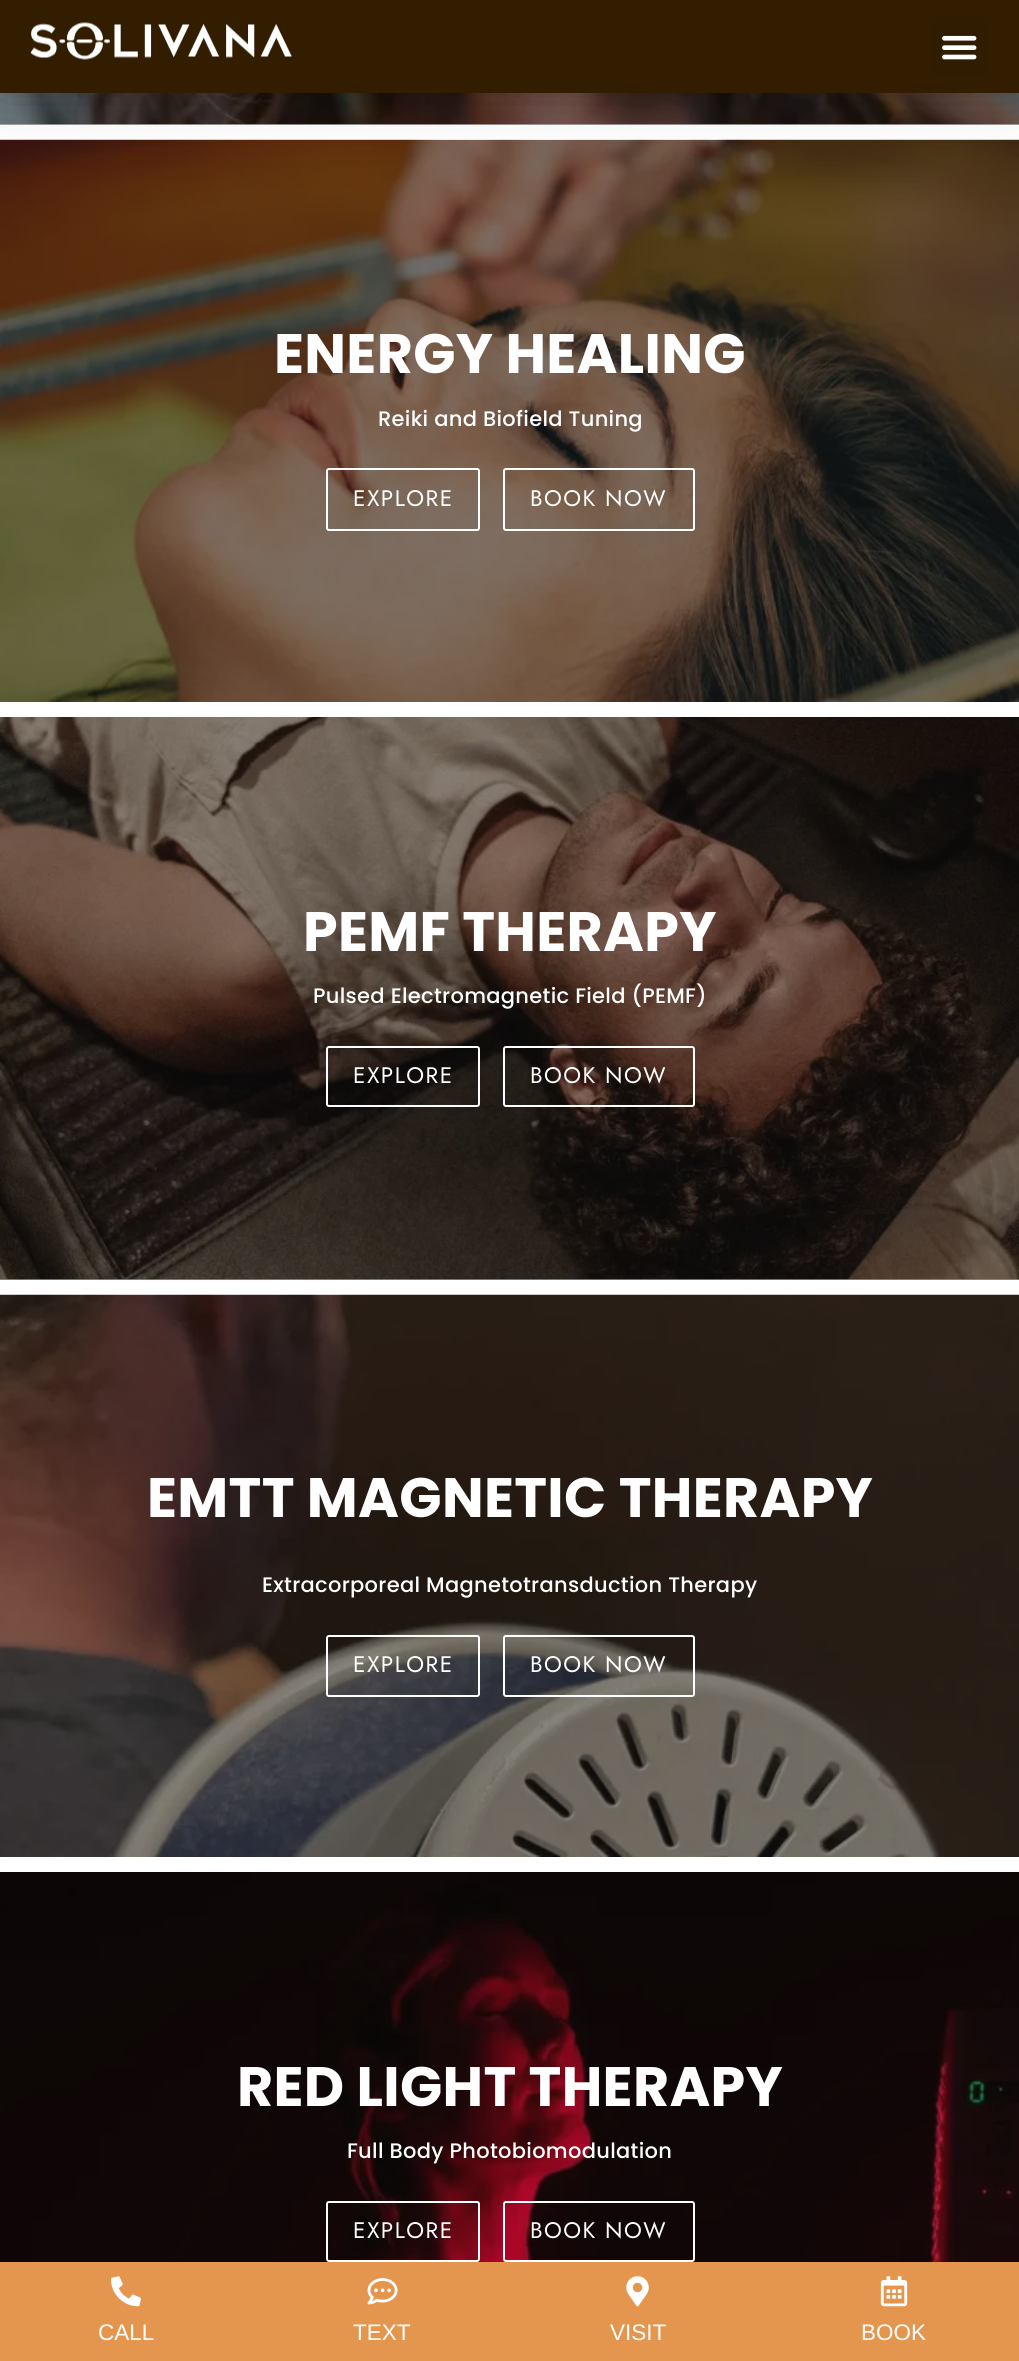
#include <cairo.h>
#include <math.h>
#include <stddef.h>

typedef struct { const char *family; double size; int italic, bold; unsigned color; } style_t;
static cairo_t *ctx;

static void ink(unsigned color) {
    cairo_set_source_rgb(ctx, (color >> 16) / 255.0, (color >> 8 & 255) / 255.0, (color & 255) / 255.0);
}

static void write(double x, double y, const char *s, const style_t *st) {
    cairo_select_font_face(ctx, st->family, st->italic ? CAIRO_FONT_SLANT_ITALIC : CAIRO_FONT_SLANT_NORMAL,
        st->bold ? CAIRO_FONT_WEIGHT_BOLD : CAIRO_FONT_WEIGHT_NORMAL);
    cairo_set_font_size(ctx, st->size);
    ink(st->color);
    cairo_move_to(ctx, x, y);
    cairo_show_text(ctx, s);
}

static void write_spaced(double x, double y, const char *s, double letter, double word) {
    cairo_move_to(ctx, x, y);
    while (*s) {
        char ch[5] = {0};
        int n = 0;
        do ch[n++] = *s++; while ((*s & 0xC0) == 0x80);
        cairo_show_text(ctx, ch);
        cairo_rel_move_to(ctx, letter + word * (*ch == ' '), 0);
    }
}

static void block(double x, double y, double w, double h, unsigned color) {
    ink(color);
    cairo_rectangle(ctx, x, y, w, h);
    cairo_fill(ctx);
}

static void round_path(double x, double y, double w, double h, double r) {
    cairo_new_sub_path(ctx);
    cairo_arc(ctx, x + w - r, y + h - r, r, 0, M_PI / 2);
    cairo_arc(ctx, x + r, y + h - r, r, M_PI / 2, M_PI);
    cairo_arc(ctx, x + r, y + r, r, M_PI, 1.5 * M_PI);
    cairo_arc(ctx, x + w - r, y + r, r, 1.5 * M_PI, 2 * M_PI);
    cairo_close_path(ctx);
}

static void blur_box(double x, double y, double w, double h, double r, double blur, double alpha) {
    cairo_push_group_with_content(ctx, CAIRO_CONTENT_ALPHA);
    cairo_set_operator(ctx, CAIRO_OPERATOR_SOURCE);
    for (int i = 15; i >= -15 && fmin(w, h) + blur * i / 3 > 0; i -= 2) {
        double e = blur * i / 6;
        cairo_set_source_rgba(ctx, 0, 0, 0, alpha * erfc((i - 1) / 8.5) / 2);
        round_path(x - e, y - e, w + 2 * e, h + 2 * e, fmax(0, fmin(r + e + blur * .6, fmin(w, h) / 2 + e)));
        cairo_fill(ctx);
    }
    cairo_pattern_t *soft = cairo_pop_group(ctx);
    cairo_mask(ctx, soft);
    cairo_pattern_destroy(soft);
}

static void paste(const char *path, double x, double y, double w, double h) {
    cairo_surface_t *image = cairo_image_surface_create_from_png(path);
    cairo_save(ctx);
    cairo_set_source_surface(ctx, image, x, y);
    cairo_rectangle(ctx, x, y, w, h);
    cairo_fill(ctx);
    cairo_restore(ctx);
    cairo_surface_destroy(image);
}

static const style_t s1 = {"Liberation Sans", 22.5, 0, 0, 0xffffff};

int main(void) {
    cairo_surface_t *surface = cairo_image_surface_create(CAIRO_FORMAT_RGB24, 1019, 2361);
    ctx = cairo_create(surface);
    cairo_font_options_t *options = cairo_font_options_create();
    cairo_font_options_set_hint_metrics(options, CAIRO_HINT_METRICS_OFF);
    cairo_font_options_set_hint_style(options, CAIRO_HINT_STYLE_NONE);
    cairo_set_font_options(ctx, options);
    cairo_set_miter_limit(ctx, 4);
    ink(0xffffff);
    cairo_paint(ctx);
    block(0, 1279, 1019, 1, 0x919090);
    block(0, 124, 1019, 1, 0xafafaf);
    paste("pic3.png", 0, 93, 1019, 32);
    paste("pic4.png", 0, 139, 1019, 563);
    ink(0x141414);
    blur_box(0, 0, 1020, 93, 0, 26, 0.33);
    block(0, 0, 1019, 93, 0x331d01);
    paste("pic1.png", 30, 22, 262, 38);
    ink(0x301c01);
    round_path(930, 18, 57, 57, 5);
    cairo_fill(ctx);
    paste("pic2.png", 942, 35, 35, 25);
    cairo_select_font_face(ctx, "Poppins", CAIRO_FONT_SLANT_NORMAL, CAIRO_FONT_WEIGHT_BOLD);
    cairo_set_font_size(ctx, 55.5);
    ink(0xffffff);
    write_spaced(274, 373, "ENERGY HEALING", 0.3, 0);
    cairo_select_font_face(ctx, "Poppins Medium", CAIRO_FONT_SLANT_NORMAL, CAIRO_FONT_WEIGHT_NORMAL);
    cairo_set_font_size(ctx, 21);
    write_spaced(378, 426, "Reiki and Biofield Tuning", 0.3, 0);
    round_path(327, 469, 152, 61, 2);
    cairo_stroke(ctx);
    cairo_select_font_face(ctx, "Jost", CAIRO_FONT_SLANT_NORMAL, CAIRO_FONT_WEIGHT_NORMAL);
    cairo_set_font_size(ctx, 22.5);
    write_spaced(353, 506, "EXPLORE", 1.5, 0);
    round_path(504, 469, 190, 61, 2);
    cairo_stroke(ctx);
    write_spaced(530, 506, "BOOK NOW", 1.5, 0);
    paste("pic5.png", 0, 717, 1019, 563);
    cairo_select_font_face(ctx, "Poppins", CAIRO_FONT_SLANT_NORMAL, CAIRO_FONT_WEIGHT_BOLD);
    cairo_set_font_size(ctx, 55.5);
    write_spaced(303, 951, "PEMF THERAPY", 0.3, 0);
    cairo_select_font_face(ctx, "Poppins Medium", CAIRO_FONT_SLANT_NORMAL, CAIRO_FONT_WEIGHT_NORMAL);
    cairo_set_font_size(ctx, 21);
    write_spaced(313, 1003, "Pulsed Electromagnetic Field (PEMF)", 0.3, 0);
    round_path(327, 1047, 152, 59, 2);
    cairo_stroke(ctx);
    cairo_select_font_face(ctx, "Jost", CAIRO_FONT_SLANT_NORMAL, CAIRO_FONT_WEIGHT_NORMAL);
    cairo_set_font_size(ctx, 22.5);
    write_spaced(353, 1083, "EXPLORE", 1.5, 0);
    round_path(504, 1047, 190, 59, 2);
    cairo_stroke(ctx);
    write_spaced(530, 1083, "BOOK NOW", 1.5, 0);
    paste("pic6.png", 0, 1294, 1019, 563);
    cairo_select_font_face(ctx, "Poppins", CAIRO_FONT_SLANT_NORMAL, CAIRO_FONT_WEIGHT_BOLD);
    cairo_set_font_size(ctx, 55.5);
    write_spaced(147, 1517, "EMTT MAGNETIC THERAPY", 0.3, 0);
    cairo_select_font_face(ctx, "Poppins Medium", CAIRO_FONT_SLANT_NORMAL, CAIRO_FONT_WEIGHT_NORMAL);
    cairo_set_font_size(ctx, 21);
    write_spaced(262, 1592, "Extracorporeal Magnetotransduction Therapy", 0.3, 0);
    round_path(327, 1636, 152, 60, 2);
    cairo_stroke(ctx);
    cairo_select_font_face(ctx, "Jost", CAIRO_FONT_SLANT_NORMAL, CAIRO_FONT_WEIGHT_NORMAL);
    cairo_set_font_size(ctx, 22.5);
    write_spaced(353, 1672, "EXPLORE", 1.5, 0);
    round_path(504, 1636, 190, 60, 2);
    cairo_stroke(ctx);
    write_spaced(530, 1672, "BOOK NOW", 1.5, 0);
    paste("pic7.png", 0, 1872, 1019, 390);
    cairo_select_font_face(ctx, "Poppins", CAIRO_FONT_SLANT_NORMAL, CAIRO_FONT_WEIGHT_BOLD);
    cairo_set_font_size(ctx, 55.5);
    write_spaced(237, 2106, "RED LIGHT THERAPY", 0.3, 0);
    cairo_select_font_face(ctx, "Poppins Medium", CAIRO_FONT_SLANT_NORMAL, CAIRO_FONT_WEIGHT_NORMAL);
    cairo_set_font_size(ctx, 21);
    write_spaced(347, 2158, "Full Body Photobiomodulation", 0.3, 0);
    round_path(327, 2202, 152, 59, 2);
    cairo_stroke(ctx);
    cairo_select_font_face(ctx, "Jost", CAIRO_FONT_SLANT_NORMAL, CAIRO_FONT_WEIGHT_NORMAL);
    cairo_set_font_size(ctx, 22.5);
    write_spaced(353, 2238, "EXPLORE", 1.5, 0);
    round_path(504, 2202, 190, 59, 2);
    cairo_stroke(ctx);
    write_spaced(530, 2238, "BOOK NOW", 1.5, 0);
    block(0, 2262, 1019, 99, 0xe5964e);
    paste("pic8.png", 111, 2276, 30, 31);
    write(98, 2340, "CALL", &s1);
    paste("pic9.png", 367, 2278, 31, 27);
    write(353, 2340, "TEXT", &s1);
    paste("pic10.png", 626, 2276, 23, 31);
    write(610, 2340, "VISIT", &s1);
    paste("pic11.png", 880, 2276, 28, 31);
    write(861, 2340, "BOOK", &s1);
    cairo_surface_write_to_png(surface, "screenshot.png");
    cairo_font_options_destroy(options);
    cairo_destroy(ctx);
    cairo_surface_destroy(surface);
    return 0;
}
